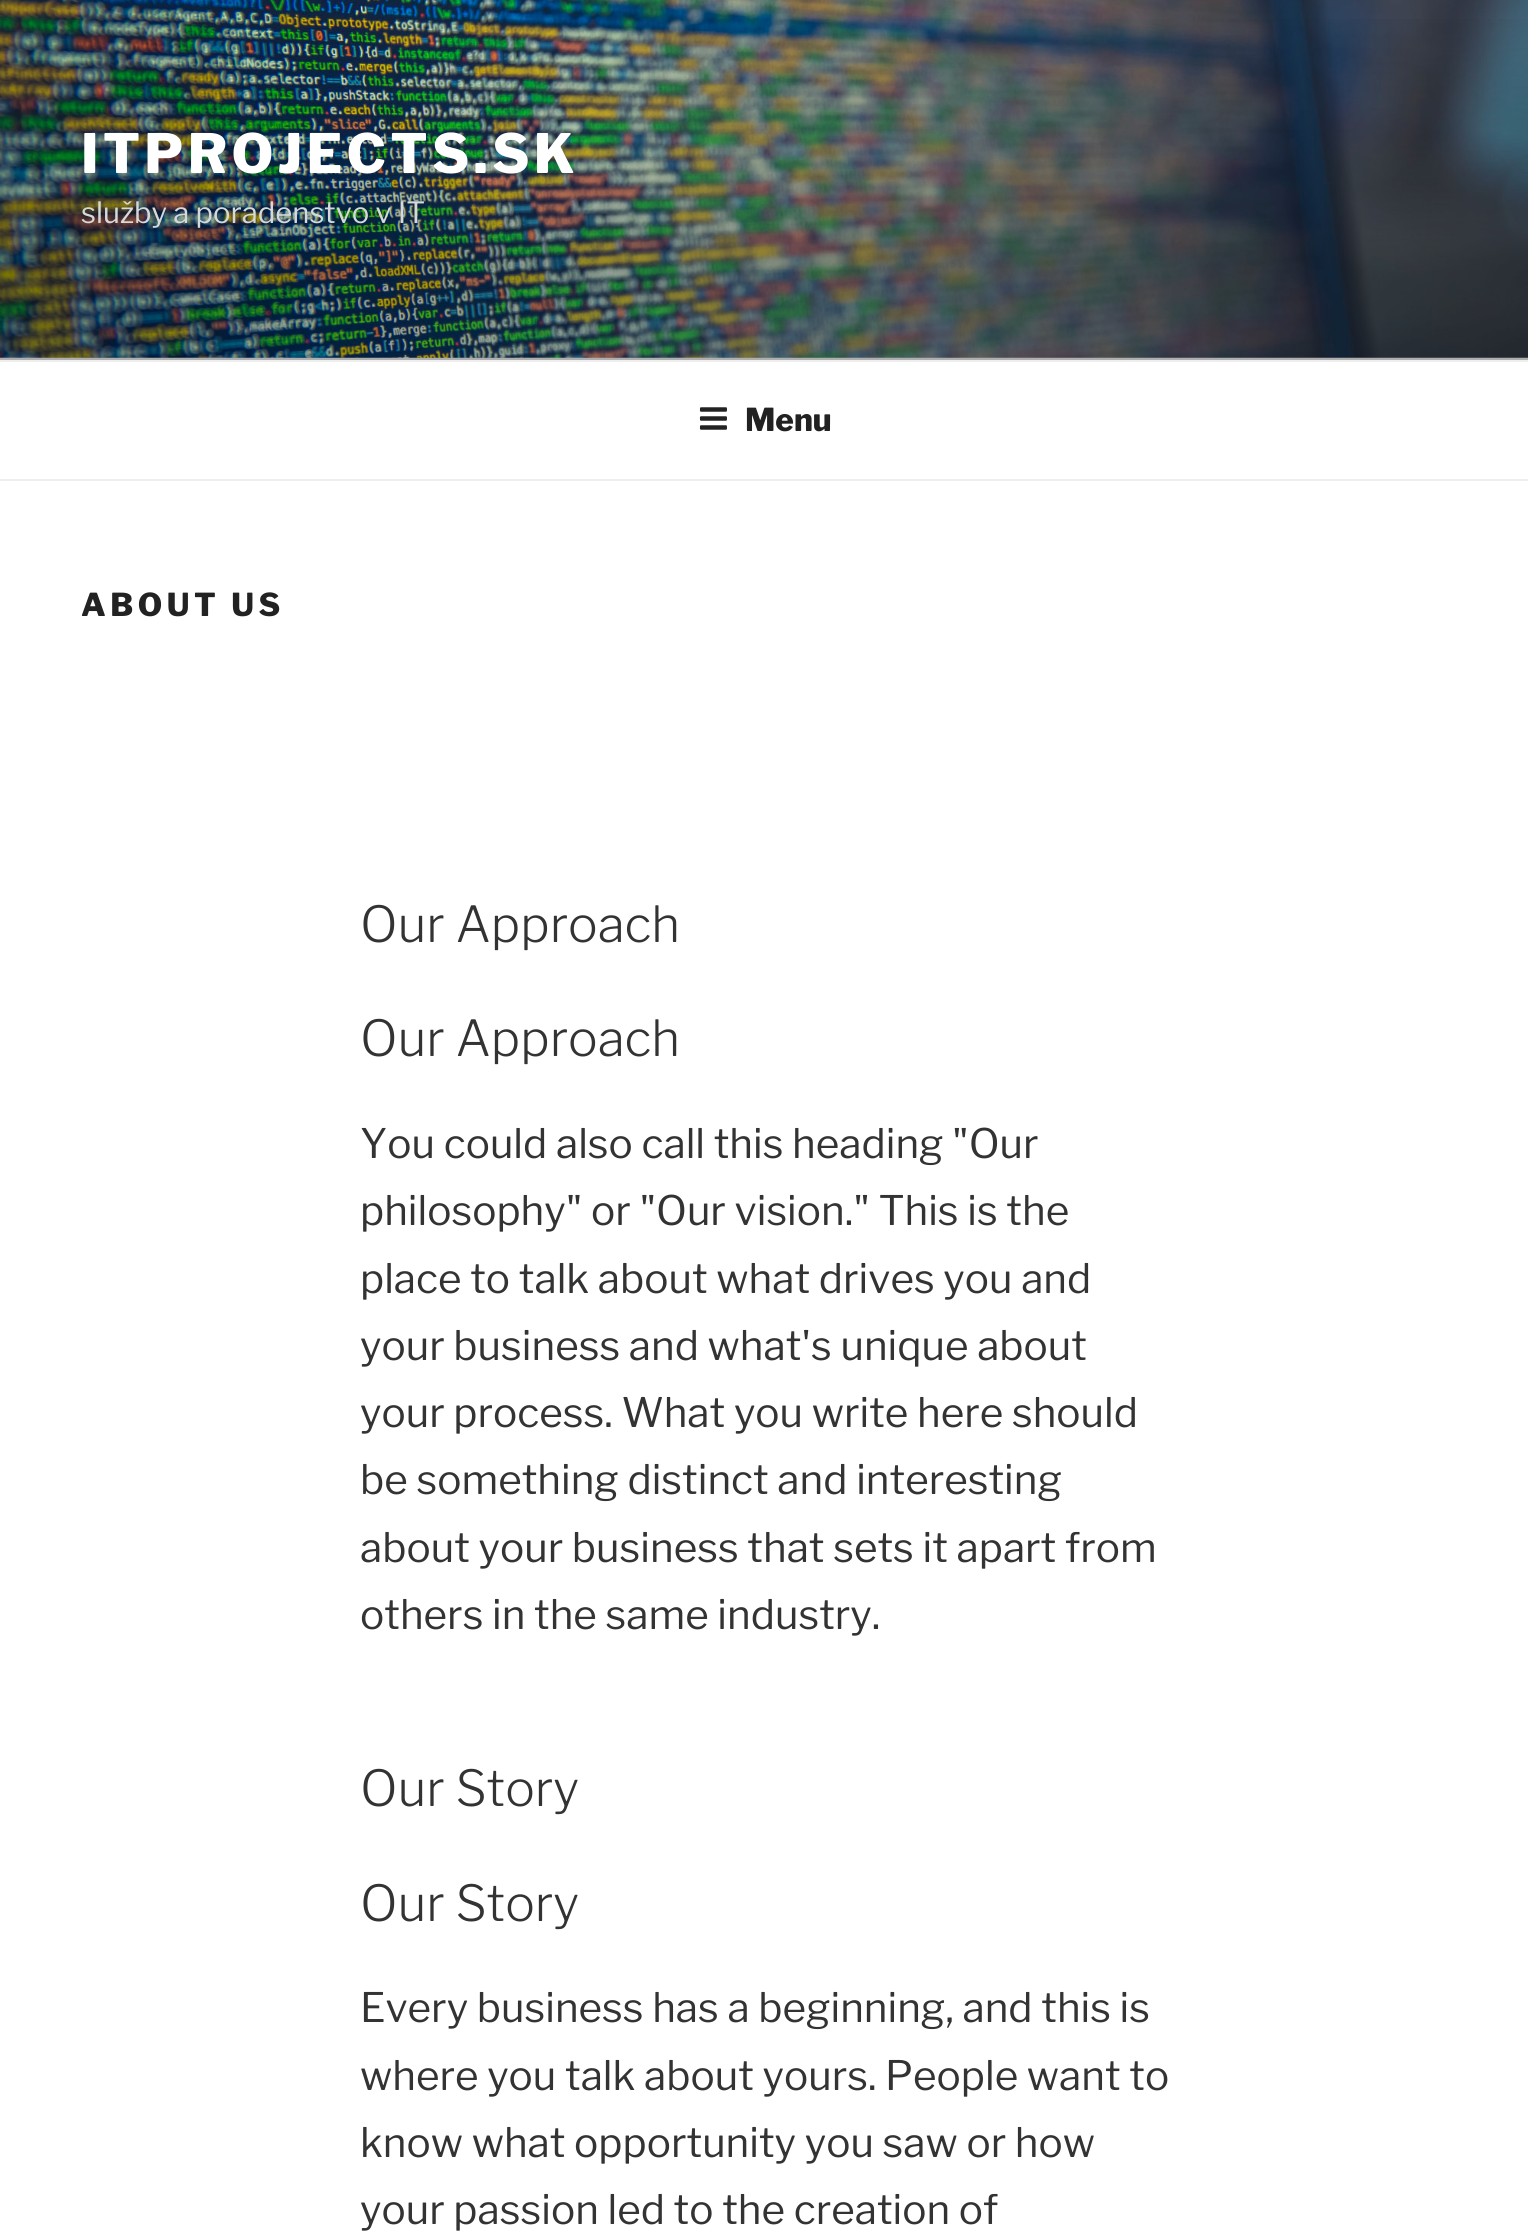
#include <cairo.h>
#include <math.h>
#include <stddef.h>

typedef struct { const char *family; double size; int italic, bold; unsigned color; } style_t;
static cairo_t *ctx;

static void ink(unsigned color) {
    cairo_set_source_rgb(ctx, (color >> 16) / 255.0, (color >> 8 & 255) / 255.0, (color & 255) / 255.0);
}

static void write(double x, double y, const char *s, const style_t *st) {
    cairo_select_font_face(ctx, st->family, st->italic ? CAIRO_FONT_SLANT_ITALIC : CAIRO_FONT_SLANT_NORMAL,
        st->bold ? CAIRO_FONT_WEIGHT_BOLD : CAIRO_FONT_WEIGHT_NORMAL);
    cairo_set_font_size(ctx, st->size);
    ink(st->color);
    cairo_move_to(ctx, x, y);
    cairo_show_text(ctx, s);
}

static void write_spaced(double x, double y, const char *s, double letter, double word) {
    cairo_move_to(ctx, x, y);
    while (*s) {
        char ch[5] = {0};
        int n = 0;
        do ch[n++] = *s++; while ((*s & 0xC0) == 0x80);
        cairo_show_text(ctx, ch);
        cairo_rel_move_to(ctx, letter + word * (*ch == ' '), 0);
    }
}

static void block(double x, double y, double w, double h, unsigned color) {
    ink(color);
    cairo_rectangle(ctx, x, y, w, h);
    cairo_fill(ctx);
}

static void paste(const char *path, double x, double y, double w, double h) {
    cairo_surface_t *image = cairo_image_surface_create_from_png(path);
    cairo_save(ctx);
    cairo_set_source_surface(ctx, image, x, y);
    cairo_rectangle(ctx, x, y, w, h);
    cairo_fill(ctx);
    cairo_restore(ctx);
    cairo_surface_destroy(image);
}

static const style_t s1 = {"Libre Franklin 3 Thin", 29.25, 0, 0, 0xd6d9da};
static const style_t s2 = {"Libre Franklin Thin", 31.5, 0, 0, 0x222222};
static const style_t s3 = {"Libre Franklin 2 Thin", 49.5, 0, 0, 0x333333};
static const style_t s4 = {"Libre Franklin 3 Thin", 40.5, 0, 0, 0x333333};

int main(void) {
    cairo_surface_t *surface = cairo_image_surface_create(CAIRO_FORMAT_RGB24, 1528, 2238);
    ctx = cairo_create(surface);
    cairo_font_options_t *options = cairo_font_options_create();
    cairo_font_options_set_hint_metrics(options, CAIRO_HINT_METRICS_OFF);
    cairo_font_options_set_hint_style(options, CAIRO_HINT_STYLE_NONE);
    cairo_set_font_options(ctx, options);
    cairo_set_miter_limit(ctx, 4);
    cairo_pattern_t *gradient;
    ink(0xffffff);
    cairo_paint(ctx);
    block(0, 357, 1528, 3, 0xfafafa);
    paste("pic1.png", 0, 0, 1528, 358);
    gradient = cairo_pattern_create_linear(765, 0, 765, 360);
    cairo_pattern_add_color_stop_rgba(gradient, 0, 0, 0, 0, 0);
    cairo_pattern_add_color_stop_rgba(gradient, 0.75, 0, 0, 0, 0.3);
    cairo_pattern_add_color_stop_rgba(gradient, 1, 0, 0, 0, 0.3);
    cairo_set_source(ctx, gradient);
    cairo_pattern_destroy(gradient);
    cairo_rectangle(ctx, 0, 19, 1528, 341);
    cairo_fill(ctx);
    cairo_select_font_face(ctx, "Libre Franklin Thin", CAIRO_FONT_SLANT_NORMAL, CAIRO_FONT_WEIGHT_NORMAL);
    cairo_set_font_size(ctx, 54);
    ink(0xffffff);
    write_spaced(81, 173, "ITPROJECTS.SK", 4.25, 0);
    write(81, 223, "služby a poradenstvo v IT", &s1);
    block(0, 360, 1528, 2, 0xeeeeee);
    block(0, 479, 1528, 2, 0xeeeeee);
    paste("pic2.png", 699, 407, 28, 23);
    write(745, 431, "Menu", &s2);
    write_spaced(81, 616, "ABOUT US", 4.5, 0);
    write(360, 942, "Our Approach", &s3);
    write(360, 1056, "Our Approach", &s3);
    write(360, 1158, "You could also call this heading \"Our", &s4);
    write(360, 1225, "philosophy\" or \"Our vision.\" This is the", &s4);
    write(360, 1293, "place to talk about what drives you and", &s4);
    write(360, 1360, "your business and what's unique about", &s4);
    write(360, 1427, "your process. What you write here should", &s4);
    write(360, 1494, "be something distinct and interesting", &s4);
    write(360, 1562, "about your business that sets it apart from", &s4);
    write(360, 1629, "others in the same industry.", &s4);
    write(360, 1806, "Our Story", &s3);
    write(360, 1921, "Our Story", &s3);
    write(360, 2022, "Every business has a beginning, and this is", &s4);
    write(360, 2090, "where you talk about yours. People want to", &s4);
    write(360, 2157, "know what opportunity you saw or how", &s4);
    write(360, 2224, "your passion led to the creation of", &s4);
    cairo_surface_write_to_png(surface, "screenshot.png");
    cairo_font_options_destroy(options);
    cairo_destroy(ctx);
    cairo_surface_destroy(surface);
    return 0;
}
